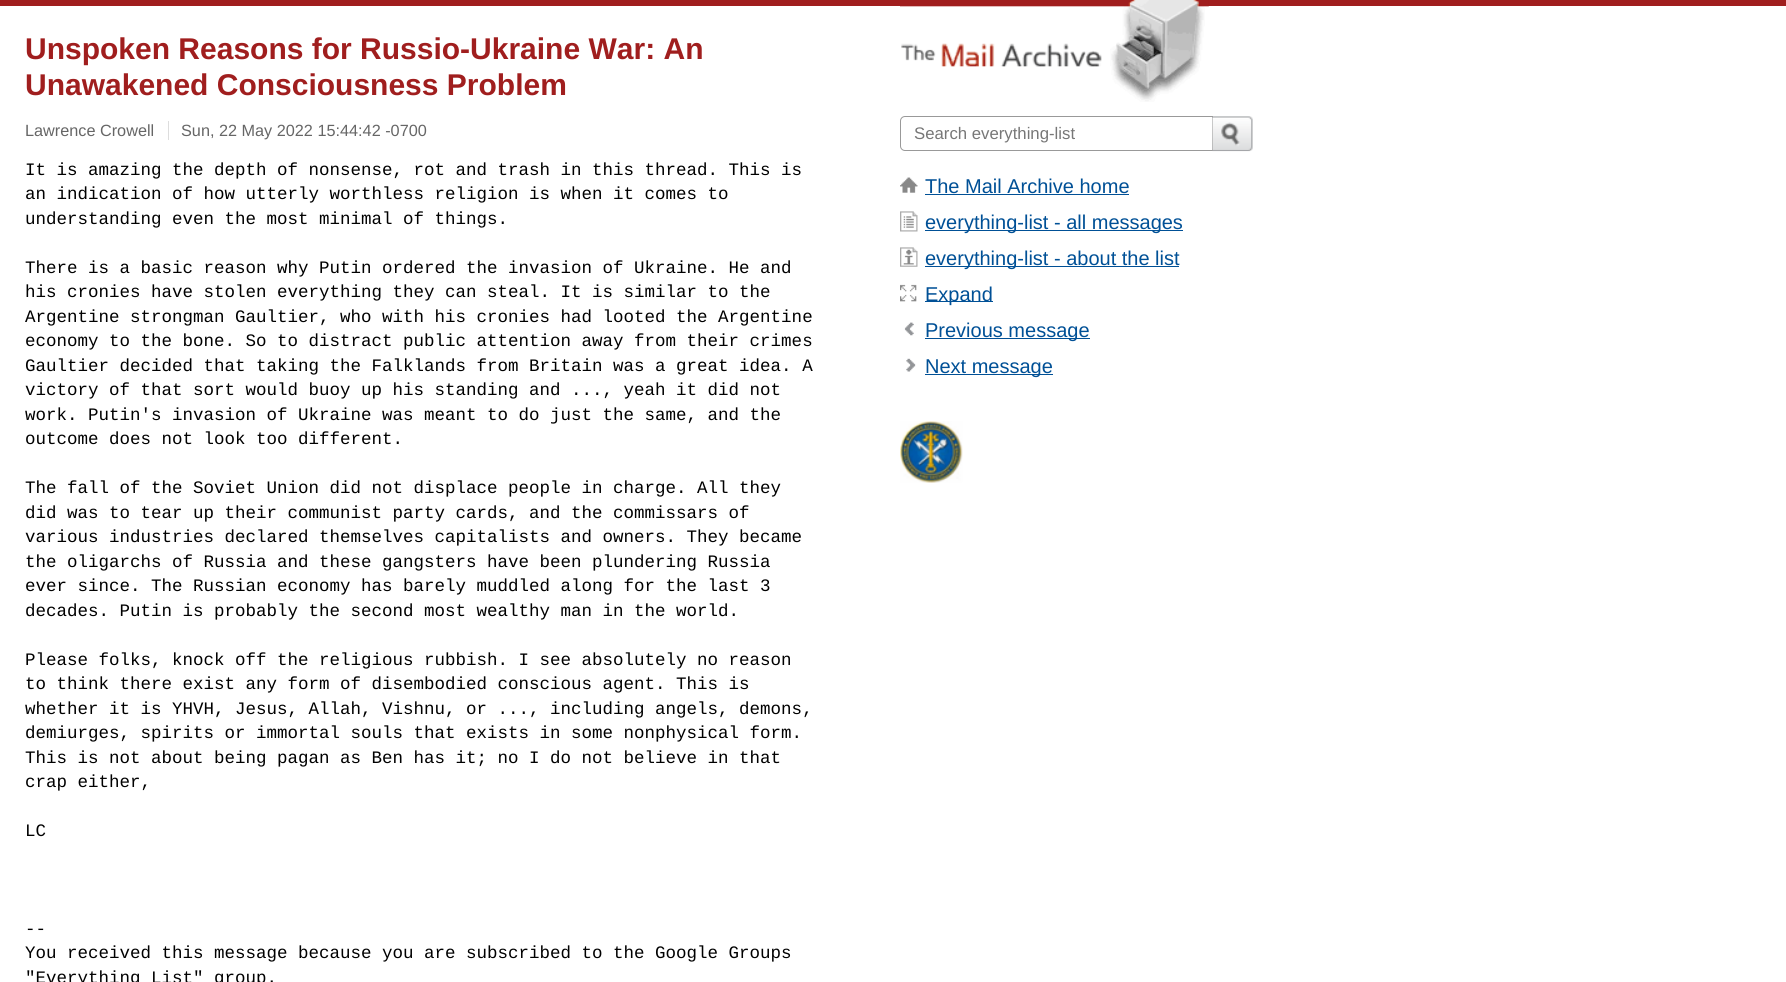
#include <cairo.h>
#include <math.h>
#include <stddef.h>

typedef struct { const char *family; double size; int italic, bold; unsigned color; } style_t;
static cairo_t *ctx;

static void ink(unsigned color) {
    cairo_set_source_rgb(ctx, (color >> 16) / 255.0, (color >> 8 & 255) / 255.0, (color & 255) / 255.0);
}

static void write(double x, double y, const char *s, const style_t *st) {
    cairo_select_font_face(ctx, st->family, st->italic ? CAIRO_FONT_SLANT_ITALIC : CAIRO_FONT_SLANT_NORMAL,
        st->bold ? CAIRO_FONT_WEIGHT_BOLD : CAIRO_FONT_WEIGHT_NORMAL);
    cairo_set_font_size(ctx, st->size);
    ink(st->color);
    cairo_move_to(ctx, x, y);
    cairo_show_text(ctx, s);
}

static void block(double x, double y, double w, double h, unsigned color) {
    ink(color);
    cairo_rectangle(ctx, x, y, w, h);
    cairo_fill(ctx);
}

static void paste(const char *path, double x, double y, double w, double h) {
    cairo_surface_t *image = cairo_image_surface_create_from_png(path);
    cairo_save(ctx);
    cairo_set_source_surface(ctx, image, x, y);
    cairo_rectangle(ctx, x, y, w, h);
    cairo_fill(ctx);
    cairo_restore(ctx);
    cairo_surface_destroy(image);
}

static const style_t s1 = {"Liberation Sans", 30, 0, 1, 0xa01e1e};
static const style_t s2 = {"Liberation Sans", 16.25, 0, 0, 0x666666};
static const style_t s3 = {"Liberation Mono", 17.5, 0, 0, 0x000000};
static const style_t s4 = {"Liberation Sans", 16.75, 0, 0, 0x777777};
static const style_t s5 = {"Liberation Sans", 20, 0, 0, 0x005096};

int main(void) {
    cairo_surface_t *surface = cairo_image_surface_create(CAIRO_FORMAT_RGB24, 1786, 982);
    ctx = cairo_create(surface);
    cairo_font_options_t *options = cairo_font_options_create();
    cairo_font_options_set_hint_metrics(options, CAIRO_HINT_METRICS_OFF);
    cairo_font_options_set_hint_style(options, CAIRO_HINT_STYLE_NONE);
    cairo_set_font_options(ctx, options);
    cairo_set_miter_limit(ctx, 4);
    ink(0xffffff);
    cairo_paint(ctx);
    block(0, 0, 1786, 6, 0xa01e1e);
    write(25, 59, "Unspoken Reasons for Russio-Ukraine War: An", &s1);
    write(25, 95, "Unawakened Consciousness Problem", &s1);
    write(25, 136, "Lawrence Crowell", &s2);
    block(168, 121, 1, 19, 0xdddddd);
    write(181, 136, "Sun, 22 May 2022 15:44:42 -0700", &s2);
    write(25, 175, "It is amazing the depth of nonsense, rot and trash in this thread. This is", &s3);
    write(25, 199, "an indication of how utterly worthless religion is when it comes to", &s3);
    write(25, 224, "understanding even the most minimal of things.", &s3);
    write(25, 273, "There is a basic reason why Putin ordered the invasion of Ukraine. He and", &s3);
    write(25, 297, "his cronies have stolen everything they can steal. It is similar to the", &s3);
    write(25, 322, "Argentine strongman Gaultier, who with his cronies had looted the Argentine", &s3);
    write(25, 346, "economy to the bone. So to distract public attention away from their crimes", &s3);
    write(25, 371, "Gaultier decided that taking the Falklands from Britain was a great idea. A", &s3);
    write(25, 395, "victory of that sort would buoy up his standing and ..., yeah it did not", &s3);
    write(25, 420, "work. Putin's invasion of Ukraine was meant to do just the same, and the", &s3);
    write(25, 444, "outcome does not look too different.", &s3);
    write(25, 493, "The fall of the Soviet Union did not displace people in charge. All they", &s3);
    write(25, 518, "did was to tear up their communist party cards, and the commissars of", &s3);
    write(25, 542, "various industries declared themselves capitalists and owners. They became", &s3);
    write(25, 567, "the oligarchs of Russia and these gangsters have been plundering Russia", &s3);
    write(25, 591, "ever since. The Russian economy has barely muddled along for the last 3", &s3);
    write(25, 616, "decades. Putin is probably the second most wealthy man in the world.", &s3);
    write(25, 665, "Please folks, knock off the religious rubbish. I see absolutely no reason", &s3);
    write(25, 689, "to think there exist any form of disembodied conscious agent. This is", &s3);
    write(25, 714, "whether it is YHVH, Jesus, Allah, Vishnu, or ..., including angels, demons,", &s3);
    write(25, 738, "demiurges, spirits or immortal souls that exists in some nonphysical form.", &s3);
    write(25, 763, "This is not about being pagan as Ben has it; no I do not believe in that", &s3);
    write(25, 787, "crap either,", &s3);
    write(25, 836, "LC", &s3);
    write(25, 934, "--", &s3);
    write(25, 958, "You received this message because you are subscribed to the Google Groups", &s3);
    write(25, 983, "\"Everything List\" group.", &s3);
    paste("pic1.png", 900, 0, 309, 102);
    cairo_new_path(ctx);
    cairo_move_to(ctx, 905, 116.5);
    cairo_line_to(ctx, 1212.5, 116.5);
    cairo_line_to(ctx, 1212.5, 150.5);
    cairo_line_to(ctx, 905, 150.5);
    cairo_curve_to(ctx, 902.5, 150.5, 900.5, 148.5, 900.5, 146);
    cairo_line_to(ctx, 900.5, 121);
    cairo_curve_to(ctx, 900.5, 118.5, 902.5, 116.5, 905, 116.5);
    cairo_close_path(ctx);
    ink(0x999999);
    cairo_set_line_width(ctx, 1);
    cairo_stroke(ctx);
    write(914, 139, "Search everything-list", &s4);
    paste("pic2.png", 1212, 116, 41, 36);
    paste("pic3.png", 900, 177, 18, 16);
    write(925, 193, "The Mail Archive home", &s5);
    block(925, 194, 204, 1, 0x005096);
    paste("pic4.png", 900, 211, 18, 21);
    block(925, 230, 258, 1, 0x005096);
    write(925, 229, "everything-list - all messages", &s5);
    paste("pic5.png", 900, 247, 18, 20);
    block(925, 266, 254, 1, 0x005096);
    write(925, 265, "everything-list - about the list", &s5);
    paste("pic6.png", 900, 284, 17, 18);
    block(925, 301, 68, 1, 0x005096);
    write(925, 301, "Expand", &s5);
    paste("pic7.png", 904, 322, 10, 14);
    block(925, 338, 165, 1, 0x005096);
    write(925, 337, "Previous message", &s5);
    paste("pic8.png", 906, 358, 10, 14);
    block(925, 374, 128, 1, 0x005096);
    write(925, 373, "Next message", &s5);
    paste("pic9.png", 900, 421, 63, 62);
    cairo_surface_write_to_png(surface, "screenshot.png");
    cairo_font_options_destroy(options);
    cairo_destroy(ctx);
    cairo_surface_destroy(surface);
    return 0;
}
